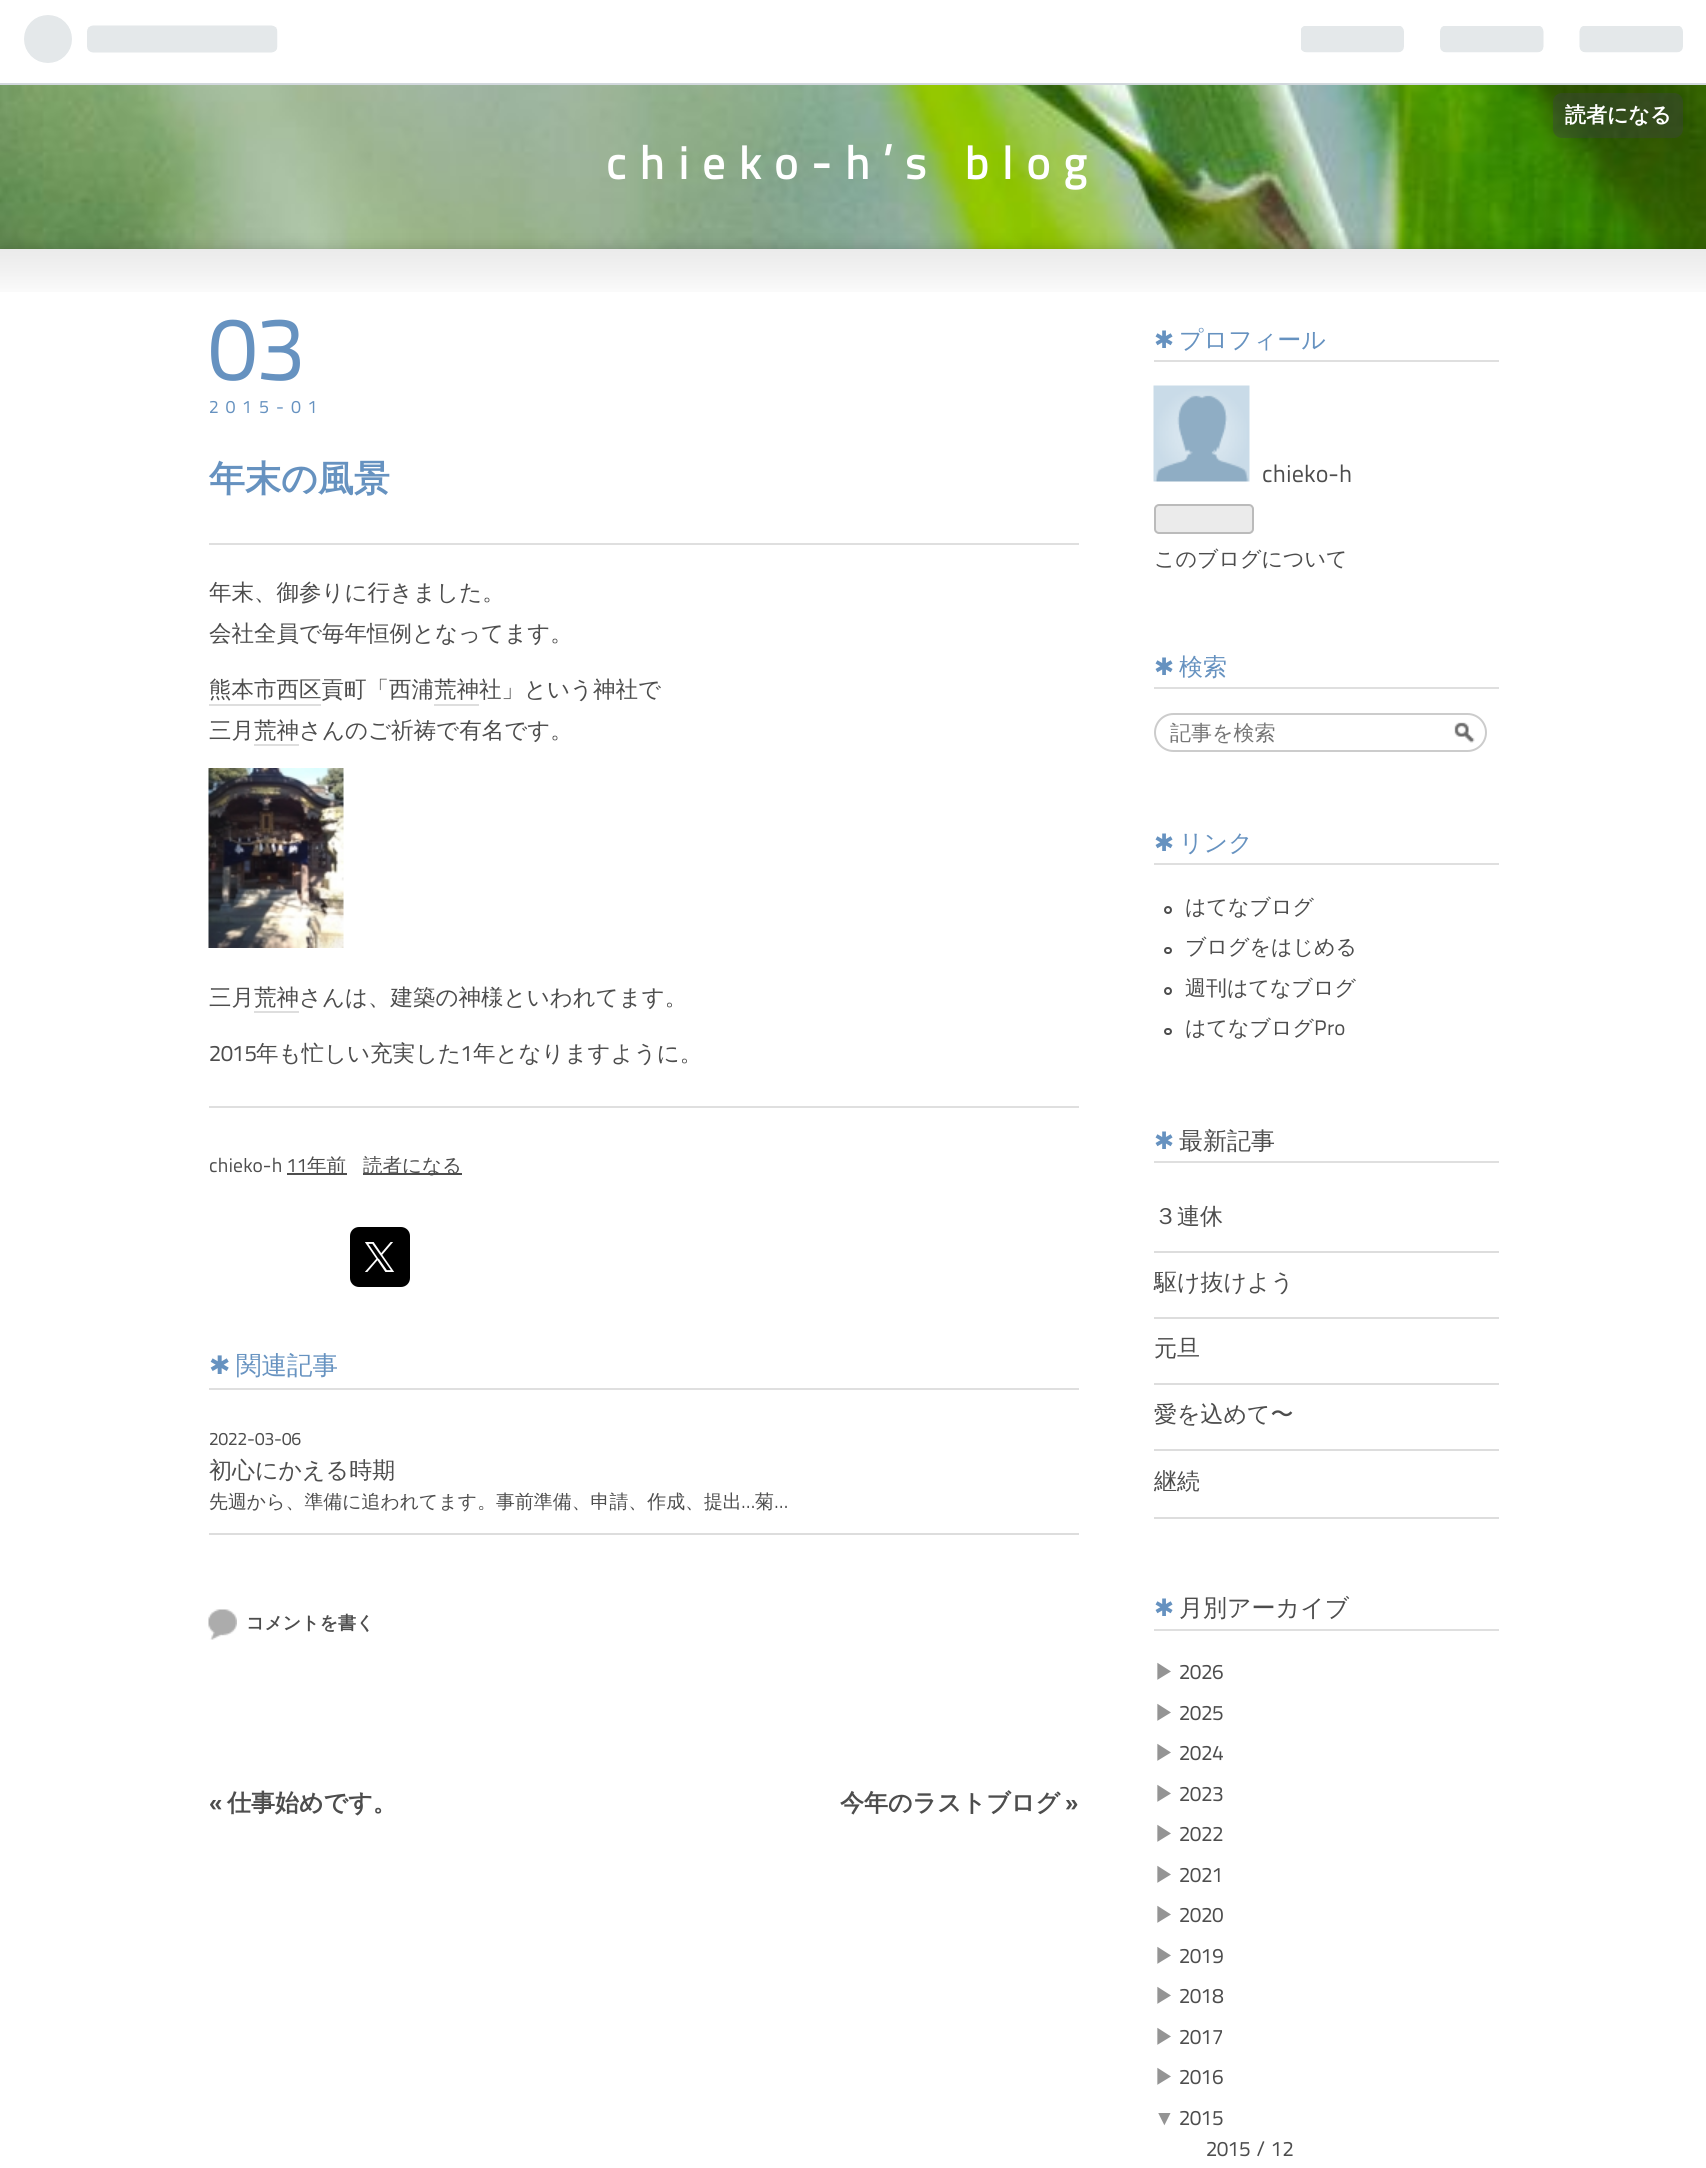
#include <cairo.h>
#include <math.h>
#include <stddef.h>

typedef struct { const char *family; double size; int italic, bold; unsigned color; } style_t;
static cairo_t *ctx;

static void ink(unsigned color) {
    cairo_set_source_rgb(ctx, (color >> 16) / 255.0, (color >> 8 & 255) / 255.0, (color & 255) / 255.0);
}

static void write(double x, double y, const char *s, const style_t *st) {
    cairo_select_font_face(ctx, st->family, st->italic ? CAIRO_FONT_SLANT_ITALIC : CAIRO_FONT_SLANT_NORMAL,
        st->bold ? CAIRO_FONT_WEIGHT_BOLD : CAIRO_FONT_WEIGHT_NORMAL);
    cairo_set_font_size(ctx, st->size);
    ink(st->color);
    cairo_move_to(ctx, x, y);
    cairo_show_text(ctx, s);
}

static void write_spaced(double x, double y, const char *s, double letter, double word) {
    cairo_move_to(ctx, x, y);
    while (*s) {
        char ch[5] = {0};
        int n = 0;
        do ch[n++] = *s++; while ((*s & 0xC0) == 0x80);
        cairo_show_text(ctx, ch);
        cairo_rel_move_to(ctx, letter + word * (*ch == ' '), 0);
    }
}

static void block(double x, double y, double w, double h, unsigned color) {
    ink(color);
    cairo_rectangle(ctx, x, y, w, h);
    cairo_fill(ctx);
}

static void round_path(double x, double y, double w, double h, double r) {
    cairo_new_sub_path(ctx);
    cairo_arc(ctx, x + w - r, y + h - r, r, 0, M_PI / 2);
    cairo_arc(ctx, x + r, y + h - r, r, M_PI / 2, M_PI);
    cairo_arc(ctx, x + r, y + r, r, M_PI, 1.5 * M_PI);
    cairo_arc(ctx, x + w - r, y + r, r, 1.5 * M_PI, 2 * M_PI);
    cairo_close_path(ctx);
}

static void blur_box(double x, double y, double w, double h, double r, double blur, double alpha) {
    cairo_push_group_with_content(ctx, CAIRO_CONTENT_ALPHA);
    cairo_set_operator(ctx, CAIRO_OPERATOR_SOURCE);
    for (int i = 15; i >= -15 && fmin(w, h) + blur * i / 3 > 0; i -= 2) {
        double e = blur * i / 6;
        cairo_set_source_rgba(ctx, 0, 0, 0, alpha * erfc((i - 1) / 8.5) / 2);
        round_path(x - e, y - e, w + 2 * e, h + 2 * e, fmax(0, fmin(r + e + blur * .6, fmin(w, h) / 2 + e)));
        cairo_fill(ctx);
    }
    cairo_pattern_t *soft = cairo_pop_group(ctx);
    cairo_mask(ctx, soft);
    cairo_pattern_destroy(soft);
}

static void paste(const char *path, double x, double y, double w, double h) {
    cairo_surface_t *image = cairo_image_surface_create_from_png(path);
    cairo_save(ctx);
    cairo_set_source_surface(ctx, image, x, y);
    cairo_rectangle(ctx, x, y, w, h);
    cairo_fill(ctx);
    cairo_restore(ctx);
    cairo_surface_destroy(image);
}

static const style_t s1 = {"WenQuanYi Zen Hei", 21, 0, 1, 0xffffff};
static const style_t s2 = {"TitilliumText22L", 90, 0, 0, 0x6692c0};
static const style_t s3 = {"WenQuanYi Zen Hei", 36, 0, 1, 0x6692c0};
static const style_t s4 = {"WenQuanYi Zen Hei Medium", 22.5, 0, 0, 0x4d4d4d};
static const style_t s5 = {"TitilliumText22L", 22.5, 0, 0, 0x4d4d4d};
static const style_t s6 = {"TitilliumText22L", 19.5, 0, 0, 0x4d4d4d};
static const style_t s7 = {"WenQuanYi Zen Hei Medium", 19.5, 0, 0, 0x4d4d4d};
static const style_t s8 = {"DejaVu Sans", 25.5, 0, 0, 0x6692c0};
static const style_t s9 = {"WenQuanYi Zen Hei Medium", 25.5, 0, 0, 0x6692c0};
static const style_t s10 = {"TitilliumText22L", 18, 0, 0, 0x4d4d4d};
static const style_t s11 = {"WenQuanYi Zen Hei Medium", 23, 0, 0, 0x4d4d4d};
static const style_t s12 = {"WenQuanYi Zen Hei Medium", 18.9, 0, 0, 0x4d4d4d};
static const style_t s13 = {"TitilliumText22L", 18.9, 0, 0, 0x4d4d4d};
static const style_t s14 = {"WenQuanYi Zen Hei", 18, 0, 1, 0x4d4d4d};
static const style_t s15 = {"Liberation Sans", 24, 0, 1, 0x4d4d4d};
static const style_t s16 = {"WenQuanYi Zen Hei", 24, 0, 1, 0x4d4d4d};
static const style_t s17 = {"DejaVu Sans", 24, 0, 0, 0x6692c0};
static const style_t s18 = {"WenQuanYi Zen Hei Medium", 24, 0, 0, 0x6692c0};
static const style_t s19 = {"TitilliumText22L", 24, 0, 0, 0x4d4d4d};
static const style_t s20 = {"WenQuanYi Zen Hei Medium", 21, 0, 0, 0x4d4d4d};
static const style_t s21 = {"WenQuanYi Zen Hei Medium", 21, 0, 0, 0x757575};
static const style_t s22 = {"TitilliumText22L", 21, 0, 0, 0x4d4d4d};
static const style_t s23 = {"WenQuanYi Zen Hei Medium", 24, 0, 0, 0x4d4d4d};
static const style_t s24 = {"WenQuanYi Zen Hei Medium", 21, 0, 0, 0x949494};
static const style_t s25 = {"Liberation Sans", 21, 0, 0, 0x949494};

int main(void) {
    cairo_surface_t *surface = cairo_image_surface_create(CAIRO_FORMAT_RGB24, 1706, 2168);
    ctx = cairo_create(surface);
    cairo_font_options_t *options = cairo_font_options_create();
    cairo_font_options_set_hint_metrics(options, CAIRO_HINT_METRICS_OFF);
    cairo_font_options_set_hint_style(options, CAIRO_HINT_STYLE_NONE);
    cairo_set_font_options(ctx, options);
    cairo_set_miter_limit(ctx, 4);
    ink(0xffffff);
    cairo_paint(ctx);
    paste("pic1.png", 0, 85, 1706, 164);
    block(0, 83, 1706, 2, 0xd2d8dd);
    paste("pic2.png", 24, 15, 254, 48);
    paste("pic3.png", 1301, 26, 382, 27);
    cairo_set_source_rgba(ctx, 0.239, 0.259, 0.271, 0.4);
    round_path(1553, 93, 130, 45, 9);
    cairo_fill(ctx);
    write(1565, 122, "読者になる", &s1);
    cairo_select_font_face(ctx, "TitilliumText22L", CAIRO_FONT_SLANT_NORMAL, CAIRO_FONT_WEIGHT_BOLD);
    cairo_set_font_size(ctx, 45);
    write_spaced(606, 179, "chieko-h’s blog", 13.5, 0);
    ink(0x000000);
    blur_box(0, 249, 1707, 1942, 0, 7.5, 0.2);
    block(0, 292, 1706, 1876, 0xffffff);
    paste("pic4.png", 0, 249, 1706, 43);
    block(209, 543, 870, 2, 0xdfdfdf);
    write(209, 380, "03", &s2);
    cairo_set_font_size(ctx, 18);
    write_spaced(209, 413, "2015-01", 7.25, 0);
    write(209, 491, "年末の風景", &s3);
    write(209, 600, "年末、御参りに行きました。", &s4);
    write(209, 641, "会社全員で毎年恒例となってます。", &s4);
    write(209, 697, "熊本市西区貢町「西浦荒神社」という神社で", &s4);
    block(209, 704, 112, 2, 0xdedede);
    block(434, 704, 45, 2, 0xdedede);
    write(209, 738, "三月荒神さんのご祈祷で有名です。", &s4);
    block(254, 744, 45, 2, 0xdedede);
    paste("pic5.png", 208, 768, 136, 180);
    write(209, 1005, "三月荒神さんは、建築の神様といわれてます。", &s4);
    block(254, 1011, 45, 2, 0xdedede);
    write(209, 1061, "2015", &s5);
    write(256, 1061, "年も忙しい充実した", &s4);
    write(461, 1061, "1", &s5);
    write(473, 1061, "年となりますように。", &s4);
    block(209, 1106, 870, 2, 0xdfdfdf);
    write(209, 1172, "chieko-h 11", &s6);
    block(287, 1173, 60, 2, 0x4d4d4d);
    write(307, 1172, "年前", &s7);
    block(363, 1173, 99, 2, 0x4d4d4d);
    write(363, 1172, "読者になる", &s7);
    ink(0x000000);
    round_path(350, 1227, 60, 60, 9);
    cairo_fill(ctx);
    paste("pic6.png", 365, 1242, 30, 30);
    block(209, 1388, 870, 2, 0xdfdfdf);
    write(209, 1374, "✱", &s8);
    write(236, 1374, "関連記事", &s9);
    block(209, 1533, 870, 2, 0xdddddd);
    write(209, 1445, "2022-03-06", &s10);
    write(209, 1478, "初心にかえる時期", &s11);
    write(209, 1508, "先週から、準備に追われてます。事前準備、申請、作成、提出", &s12);
    write(741, 1508, "…", &s13);
    write(755, 1508, "菊", &s12);
    write(774, 1508, "…", &s13);
    paste("pic7.png", 208, 1609, 29, 31);
    write(246, 1629, "コメントを書く", &s14);
    write(209, 1811, "«", &s15);
    write(227, 1811, "仕事始めです。", &s16);
    write(840, 1811, "今年のラストブログ", &s16);
    write(1065, 1811, "»", &s15);
    block(1154, 360, 345, 2, 0xdfdfdf);
    write(1154, 348, "✱", &s17);
    write(1179, 348, "プロフィール", &s18);
    paste("pic8.png", 1153, 385, 97, 97);
    write(1262, 482, "chieko-h", &s19);
    ink(0xebebeb);
    round_path(1155, 505, 98, 28, 4);
    cairo_fill_preserve(ctx);
    ink(0xbbbbbb);
    cairo_stroke(ctx);
    write(1154, 566, "このブログについて", &s20);
    block(1154, 687, 345, 2, 0xdfdfdf);
    write(1154, 675, "✱", &s17);
    write(1179, 675, "検索", &s18);
    round_path(1155, 714, 331, 37, 18.5);
    ink(0xcccccc);
    cairo_stroke(ctx);
    write(1170, 740, "記事を検索", &s21);
    paste("pic9.png", 1454, 722, 21, 21);
    block(1154, 863, 345, 2, 0xdfdfdf);
    write(1154, 851, "✱", &s17);
    write(1179, 851, "リンク", &s18);
    cairo_new_path(ctx);
    cairo_arc(ctx, 1168, 910, 3, 0, 2 * M_PI);
    ink(0x4d4d4d);
    cairo_stroke(ctx);
    write(1185, 914, "はてなブログ", &s20);
    round_path(1165, 948, 6, 5, 2.5);
    cairo_stroke(ctx);
    write(1185, 954, "ブログをはじめる", &s20);
    cairo_new_path(ctx);
    cairo_arc(ctx, 1168, 991, 3, 0, 2 * M_PI);
    cairo_stroke(ctx);
    write(1185, 995, "週刊はてなブログ", &s20);
    round_path(1165, 1029, 6, 5, 2.5);
    cairo_stroke(ctx);
    write(1185, 1035, "はてなブログ", &s20);
    write(1314, 1035, "Pro", &s22);
    block(1154, 1161, 345, 2, 0xdfdfdf);
    write(1154, 1149, "✱", &s17);
    write(1179, 1149, "最新記事", &s23);
    block(1154, 1251, 345, 2, 0xdddddd);
    write(1154, 1224, "３連休", &s11);
    block(1154, 1317, 345, 2, 0xdddddd);
    write(1154, 1290, "駆け抜けよう", &s11);
    block(1154, 1383, 345, 2, 0xdddddd);
    write(1154, 1356, "元旦", &s11);
    block(1154, 1449, 345, 2, 0xdddddd);
    write(1154, 1422, "愛を込めて〜", &s11);
    block(1154, 1517, 345, 2, 0xdddddd);
    write(1154, 1489, "継続", &s11);
    block(1154, 1629, 345, 2, 0xdfdfdf);
    write(1154, 1616, "✱", &s17);
    write(1179, 1616, "月別アーカイブ", &s23);
    write(1154, 1679, "▶", &s24);
    write(1179, 1679, "2026", &s22);
    write(1154, 1720, "▶", &s24);
    write(1179, 1720, "2025", &s22);
    write(1154, 1760, "▶", &s24);
    write(1179, 1760, "2024", &s22);
    write(1154, 1801, "▶", &s24);
    write(1179, 1801, "2023", &s22);
    write(1154, 1841, "▶", &s24);
    write(1179, 1841, "2022", &s22);
    write(1154, 1882, "▶", &s24);
    write(1179, 1882, "2021", &s22);
    write(1154, 1922, "▶", &s24);
    write(1179, 1922, "2020", &s22);
    write(1154, 1963, "▶", &s24);
    write(1179, 1963, "2019", &s22);
    write(1154, 2003, "▶", &s24);
    write(1179, 2003, "2018", &s22);
    write(1154, 2044, "▶", &s24);
    write(1179, 2044, "2017", &s22);
    write(1154, 2084, "▶", &s24);
    write(1179, 2084, "2016", &s22);
    write(1154, 2125, "▼", &s25);
    write(1179, 2125, "2015", &s22);
    write(1206, 2156, "2015 / 12", &s22);
    cairo_surface_write_to_png(surface, "screenshot.png");
    cairo_font_options_destroy(options);
    cairo_destroy(ctx);
    cairo_surface_destroy(surface);
    return 0;
}
